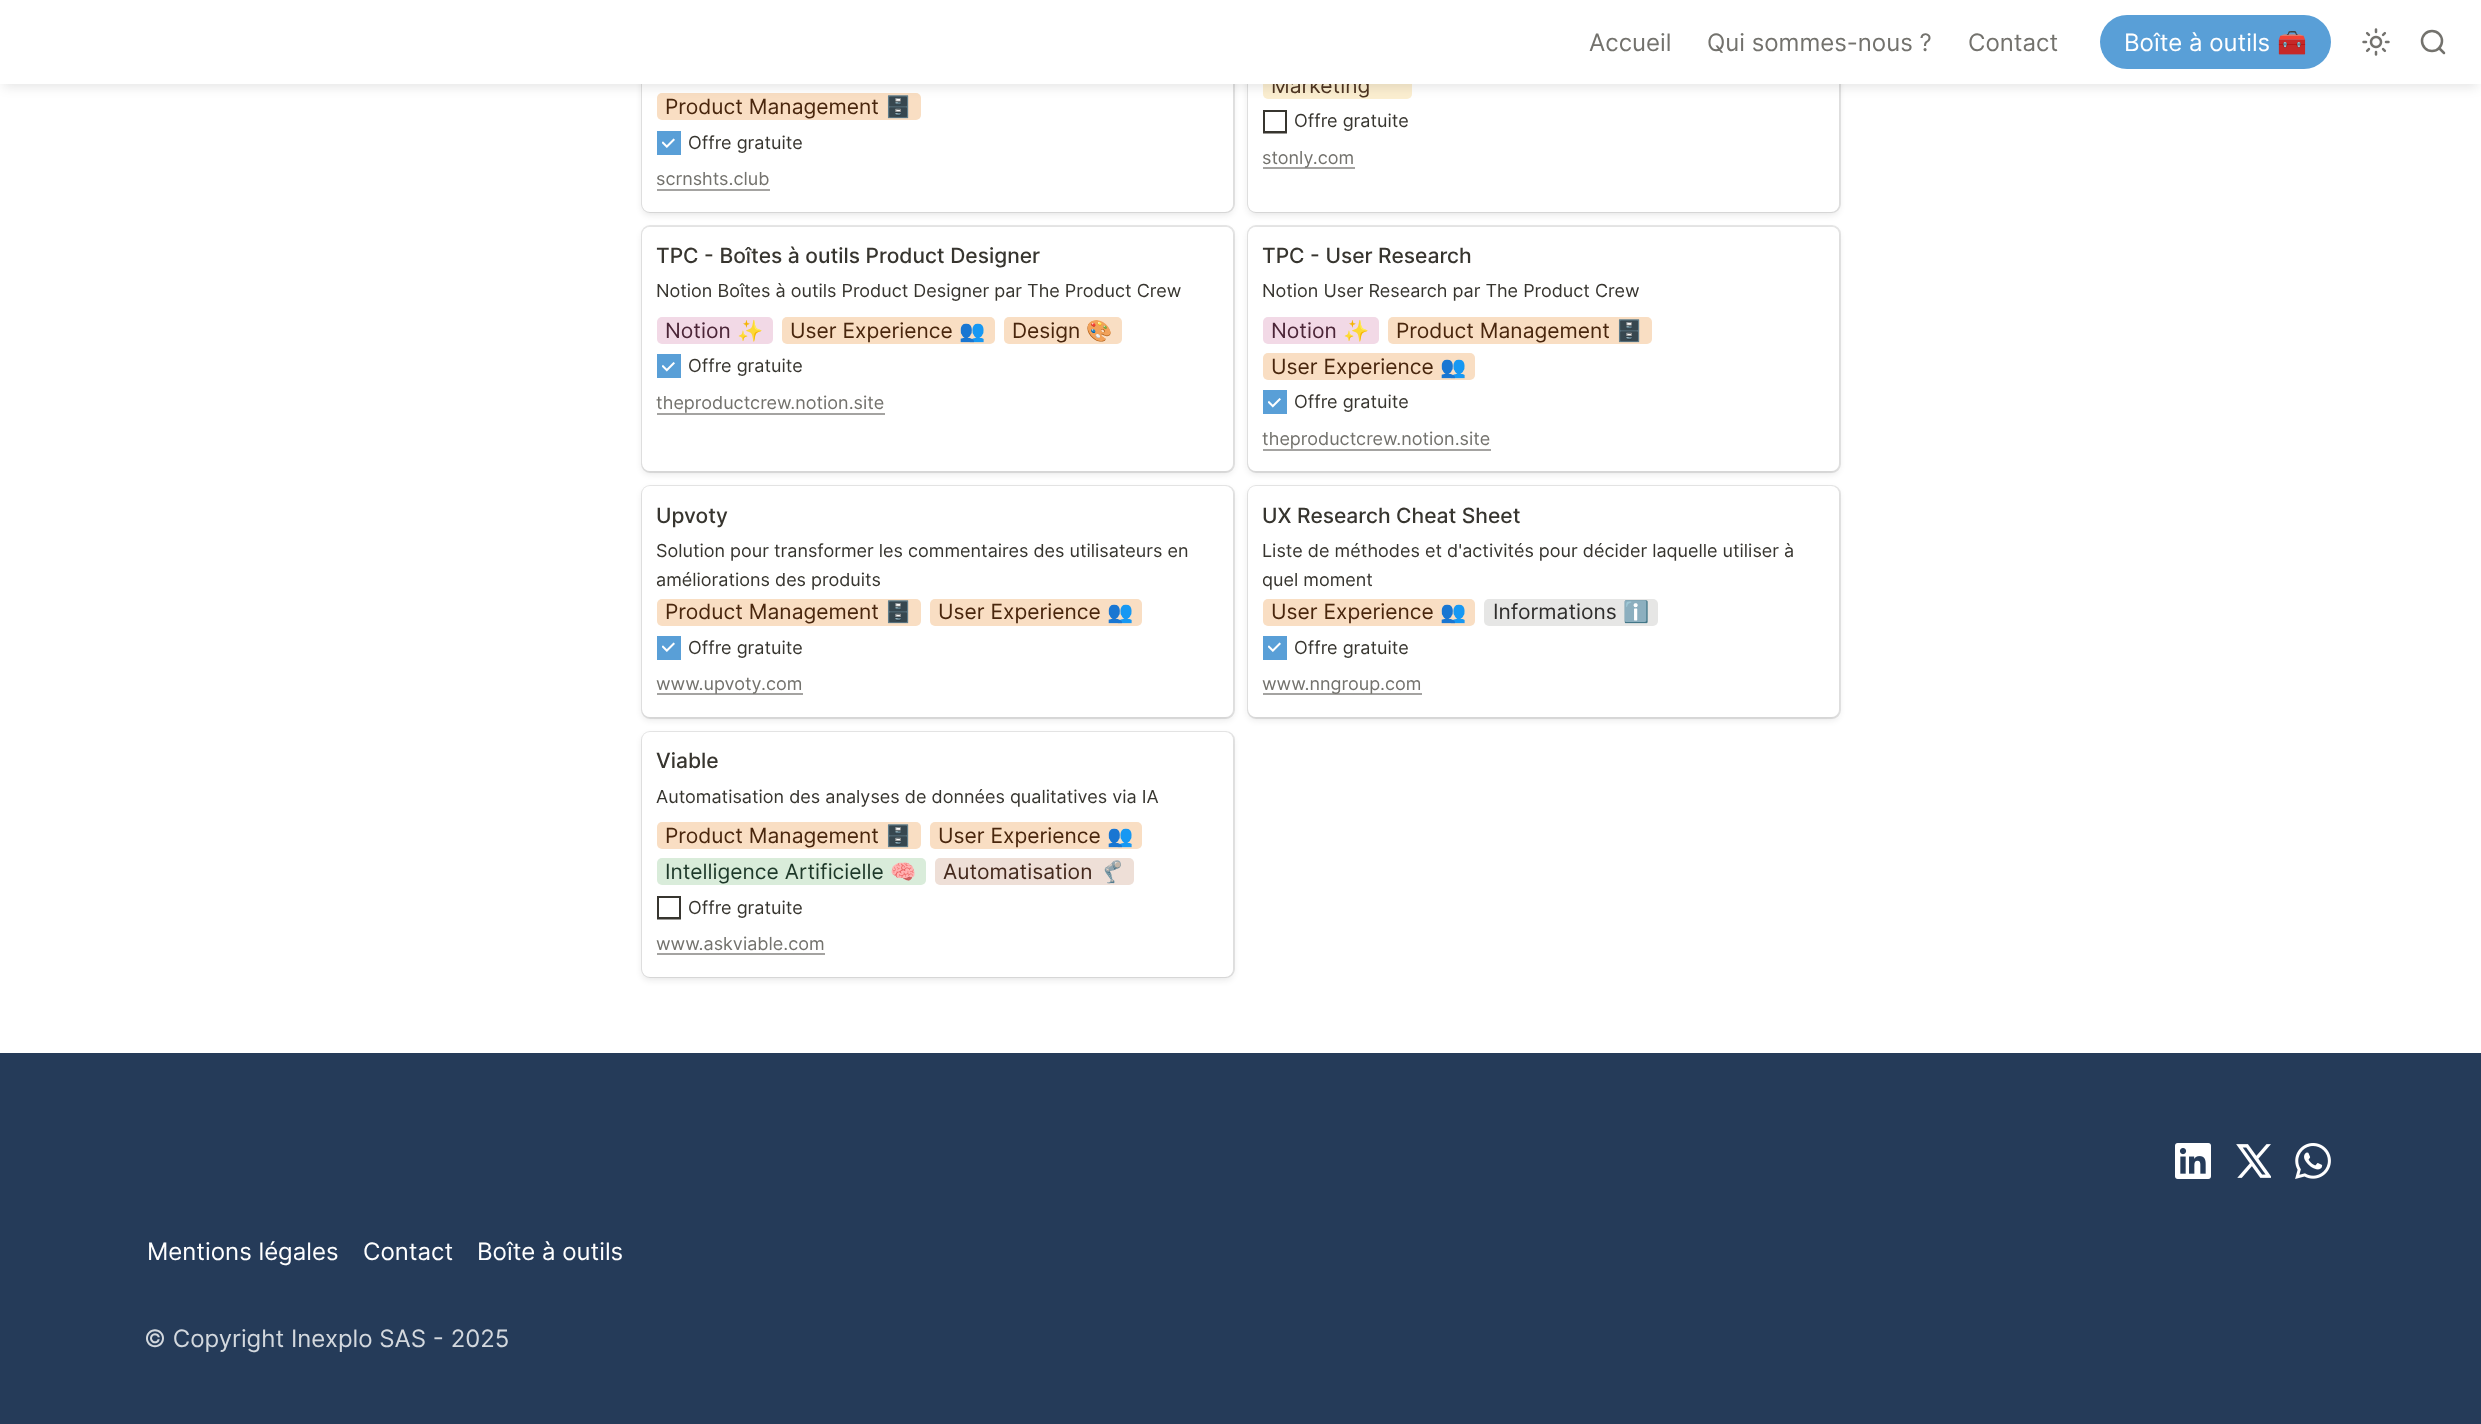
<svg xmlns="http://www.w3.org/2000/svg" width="2481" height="1424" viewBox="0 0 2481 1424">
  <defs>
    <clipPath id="clip1"><path d="M1263 110h24v24H1263z"/></clipPath>
    <clipPath id="clip2"><path d="M657 896h24v24H657z"/></clipPath>
  </defs>
  <rect width="100%" height="100%" fill="#fff"/>
  <rect x="642" y="-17" width="591" height="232" rx="8" fill="#0f0f0f1a" filter="blur(3px)"/>
  <rect x="642" y="-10" width="592" height="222" rx="8" fill="none" stroke="#0f0f0f1a" stroke-width="2"/>
  <rect x="642" y="-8" width="591" height="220" rx="8" fill="#fff"/>
  <rect x="657" y="93" width="264" height="27" rx="5" fill="#f9dec3"/>
  <rect x="1248" y="-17" width="591" height="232" rx="8" fill="#0f0f0f1a" filter="blur(3px)"/>
  <rect x="1248" y="-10" width="592" height="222" rx="8" fill="none" stroke="#0f0f0f1a" stroke-width="2"/>
  <rect x="1248" y="-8" width="591" height="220" rx="8" fill="#fff"/>
  <rect x="1263" y="72" width="149" height="27" rx="5" fill="#fbeed0"/>
  <path d="M3 9h2475v78H3z" fill="#0000001a" filter="blur(6px)"/>
  <path d="M657 131h24v24H657z" fill="#599fd7"/>
  <image x="662" y="138" width="13" height="10" href="img/2.png"/>
  <path d="M657 189h113v2H657z" fill="#a4a3a1"/>
  <g clip-path="url(#clip1)">
    <path d="M1265 112V131H1285V112ZM1263 109.5H1287V133.5H1263Z" fill="#37352f"/>
  </g>
  <path d="M1263 167h92v2H1263z" fill="#a4a3a1"/>
  <rect x="642" y="230" width="591" height="244" rx="8" fill="#0f0f0f1a" filter="blur(3px)"/>
  <rect x="642" y="226" width="592" height="246" rx="8" fill="none" stroke="#0f0f0f1a" stroke-width="2"/>
  <rect x="642" y="227" width="591" height="244" rx="8" fill="#fff"/>
  <rect x="657" y="317" width="116" height="27" rx="5" fill="#f2d9e6"/>
  <rect x="782" y="317" width="213" height="27" rx="5" fill="#f9dec3"/>
  <rect x="1004" y="317" width="118" height="27" rx="5" fill="#f9dec3"/>
  <path d="M657 354h24v24H657z" fill="#599fd7"/>
  <image x="662" y="362" width="13" height="10" href="img/3.png"/>
  <path d="M657 413h228v2H657z" fill="#a4a3a1"/>
  <rect x="1248" y="230" width="591" height="244" rx="8" fill="#0f0f0f1a" filter="blur(3px)"/>
  <rect x="1248" y="226" width="592" height="246" rx="8" fill="none" stroke="#0f0f0f1a" stroke-width="2"/>
  <rect x="1248" y="227" width="591" height="244" rx="8" fill="#fff"/>
  <rect x="1263" y="317" width="116" height="27" rx="5" fill="#f2d9e6"/>
  <rect x="1388" y="317" width="264" height="27" rx="5" fill="#f9dec3"/>
  <rect x="1263" y="353" width="212" height="27" rx="5" fill="#f9dec3"/>
  <path d="M1263 390h24v24H1263z" fill="#599fd7"/>
  <image x="1268" y="398" width="13" height="10" href="img/3.png"/>
  <path d="M1263 449h228v2H1263z" fill="#a4a3a1"/>
  <rect x="642" y="489" width="591" height="231" rx="8" fill="#0f0f0f1a" filter="blur(3px)"/>
  <rect x="642" y="486" width="592" height="232" rx="8" fill="none" stroke="#0f0f0f1a" stroke-width="2"/>
  <rect x="642" y="486" width="591" height="231" rx="8" fill="#fff"/>
  <rect x="657" y="599" width="264" height="27" rx="5" fill="#f9dec3"/>
  <rect x="930" y="599" width="212" height="27" rx="5" fill="#f9dec3"/>
  <path d="M657 636h24v24H657z" fill="#599fd7"/>
  <image x="662" y="642" width="13" height="10" href="img/2.png"/>
  <path d="M657 693h146v2H657z" fill="#a4a3a1"/>
  <rect x="1248" y="489" width="591" height="231" rx="8" fill="#0f0f0f1a" filter="blur(3px)"/>
  <rect x="1248" y="486" width="592" height="232" rx="8" fill="none" stroke="#0f0f0f1a" stroke-width="2"/>
  <rect x="1248" y="486" width="591" height="231" rx="8" fill="#fff"/>
  <rect x="1263" y="599" width="212" height="27" rx="5" fill="#f9dec3"/>
  <rect x="1484" y="599" width="174" height="27" rx="5" fill="#e6e6e5"/>
  <path d="M1263 636h24v24H1263z" fill="#599fd7"/>
  <image x="1268" y="642" width="13" height="10" href="img/2.png"/>
  <path d="M1263 693h159v2H1263z" fill="#a4a3a1"/>
  <rect x="642" y="735" width="591" height="245" rx="8" fill="#0f0f0f1a" filter="blur(3px)"/>
  <rect x="642" y="732" width="592" height="245" rx="8" fill="none" stroke="#0f0f0f1a" stroke-width="2"/>
  <rect x="642" y="732" width="591" height="245" rx="8" fill="#fff"/>
  <rect x="657" y="822" width="264" height="27" rx="5" fill="#f9dec3"/>
  <rect x="930" y="822" width="212" height="27" rx="5" fill="#f9dec3"/>
  <rect x="657" y="858" width="269" height="27" rx="5" fill="#d9ecda"/>
  <rect x="935" y="858" width="199" height="27" rx="5" fill="#eedfd7"/>
  <g clip-path="url(#clip2)">
    <path d="M659 898V917H679V898ZM657 895.5H681V919.5H657Z" fill="#37352f"/>
  </g>
  <path d="M657 953h168v2H657z" fill="#a4a3a1"/>
  <path d="M0 1053h2481v371H0z" fill="#253b59"/>
  <image x="2175" y="1143" width="36" height="36" href="img/4.png"/>
  <image x="2236" y="1144" width="35" height="34" href="img/5.png"/>
  <image x="2295" y="1143" width="36" height="36" href="img/6.png"/>
  <text x="665" y="114" font-family="Inter" font-size="21" fill="#49260d">Product Management</text>
  <text x="885" y="114" font-family="Noto Color Emoji" font-size="21" fill="#49260d">🗄️</text>
  <text x="688" y="149" font-family="Inter" font-size="18" fill="#37352f">Offre gratuite</text>
  <text x="656" y="185" font-family="Inter" font-size="18" fill="#73726d">scrnshts.club</text>
  <text x="1271" y="93" font-family="Inter" font-size="21" fill="#4b3320">Marketing</text>
  <path d="M0 0h2481v84H0z" fill="#fff"/>
  <circle cx="2432" cy="41" r="10" fill="none" stroke="#73726d" stroke-width="2.5"/>
  <path d="M2444 53L2439 48" fill="none" stroke="#73726d" stroke-width="2.5" stroke-linecap="round" stroke-linejoin="round"/>
  <image x="2362" y="28" width="28" height="28" href="img/1.png"/>
  <rect x="2100" y="15" width="231" height="54" rx="27" fill="#599fd7"/>
  <text x="2277" y="51" font-family="Noto Color Emoji" font-size="24" fill="#fff">🧰</text>
  <text x="2124" y="51" font-family="Inter" font-size="24" fill="#fff">Boîte à outils</text>
  <g font-family="Inter" font-size="24" fill="#73726d">
    <text x="1968" y="51">Contact</text>
    <text x="1707" y="51">Qui sommes-nous ?</text>
    <text x="1589" y="51">Accueil</text>
  </g>
  <text x="1294" y="127" font-family="Inter" font-size="18" fill="#37352f">Offre gratuite</text>
  <text x="1262" y="164" font-family="Inter" font-size="18" fill="#73726d">stonly.com</text>
  <text x="656" y="263" font-family="Inter" font-size="21" font-weight="500" fill="#37352f">TPC - Boîtes à outils Product Designer</text>
  <text x="656" y="297" font-family="Inter" font-size="18" fill="#37352f">Notion Boîtes à outils Product Designer par The Product Crew</text>
  <text x="665" y="338" font-family="Inter" font-size="21" fill="#4b2537">Notion</text>
  <text x="737" y="338" font-family="Noto Color Emoji" font-size="21" fill="#4b2537">✨</text>
  <text x="790" y="338" font-family="Inter" font-size="21" fill="#49260d">User Experience</text>
  <text x="959" y="338" font-family="Noto Color Emoji" font-size="21" fill="#49260d">👥</text>
  <text x="1012" y="338" font-family="Inter" font-size="21" fill="#49260d">Design</text>
  <text x="1086" y="338" font-family="Noto Color Emoji" font-size="21" fill="#49260d">🎨</text>
  <text x="688" y="372" font-family="Inter" font-size="18" fill="#37352f">Offre gratuite</text>
  <text x="656" y="409" font-family="Inter" font-size="18" fill="#73726d">theproductcrew.notion.site</text>
  <text x="1262" y="263" font-family="Inter" font-size="21" font-weight="500" fill="#37352f">TPC - User Research</text>
  <text x="1262" y="297" font-family="Inter" font-size="18" fill="#37352f">Notion User Research par The Product Crew</text>
  <text x="1271" y="338" font-family="Inter" font-size="21" fill="#4b2537">Notion</text>
  <text x="1343" y="338" font-family="Noto Color Emoji" font-size="21" fill="#4b2537">✨</text>
  <text x="1396" y="338" font-family="Inter" font-size="21" fill="#49260d">Product Management</text>
  <text x="1616" y="338" font-family="Noto Color Emoji" font-size="21" fill="#49260d">🗄️</text>
  <text x="1271" y="374" font-family="Inter" font-size="21" fill="#49260d">User Experience</text>
  <text x="1440" y="374" font-family="Noto Color Emoji" font-size="21" fill="#49260d">👥</text>
  <text x="1294" y="408" font-family="Inter" font-size="18" fill="#37352f">Offre gratuite</text>
  <text x="1262" y="445" font-family="Inter" font-size="18" fill="#73726d">theproductcrew.notion.site</text>
  <text x="656" y="523" font-family="Inter" font-size="21" font-weight="500" fill="#37352f">Upvoty</text>
  <g font-family="Inter" font-size="18" fill="#37352f">
    <text x="656" y="557">Solution pour transformer les commentaires des utilisateurs en</text>
    <text x="656" y="586">améliorations des produits</text>
  </g>
  <text x="665" y="619" font-family="Inter" font-size="21" fill="#49260d">Product Management</text>
  <text x="885" y="619" font-family="Noto Color Emoji" font-size="21" fill="#49260d">🗄️</text>
  <text x="938" y="619" font-family="Inter" font-size="21" fill="#49260d">User Experience</text>
  <text x="1107" y="619" font-family="Noto Color Emoji" font-size="21" fill="#49260d">👥</text>
  <text x="688" y="654" font-family="Inter" font-size="18" fill="#37352f">Offre gratuite</text>
  <text x="656" y="690" font-family="Inter" font-size="18" fill="#73726d">www.upvoty.com</text>
  <text x="1262" y="523" font-family="Inter" font-size="21" font-weight="500" fill="#37352f">UX Research Cheat Sheet</text>
  <g font-family="Inter" font-size="18" fill="#37352f">
    <text x="1262" y="557">Liste de méthodes et d'activités pour décider laquelle utiliser à</text>
    <text x="1262" y="586">quel moment</text>
  </g>
  <text x="1271" y="619" font-family="Inter" font-size="21" fill="#49260d">User Experience</text>
  <text x="1440" y="619" font-family="Noto Color Emoji" font-size="21" fill="#49260d">👥</text>
  <text x="1493" y="619" font-family="Inter" font-size="21" fill="#2f2e2d">Informations</text>
  <text x="1623" y="619" font-family="Noto Color Emoji" font-size="21" fill="#2f2e2d">ℹ️</text>
  <text x="1294" y="654" font-family="Inter" font-size="18" fill="#37352f">Offre gratuite</text>
  <text x="1262" y="690" font-family="Inter" font-size="18" fill="#73726d">www.nngroup.com</text>
  <text x="656" y="768" font-family="Inter" font-size="21" font-weight="500" fill="#37352f">Viable</text>
  <text x="656" y="803" font-family="Inter" font-size="18" fill="#37352f">Automatisation des analyses de données qualitatives via IA</text>
  <text x="665" y="843" font-family="Inter" font-size="21" fill="#49260d">Product Management</text>
  <text x="885" y="843" font-family="Noto Color Emoji" font-size="21" fill="#49260d">🗄️</text>
  <text x="938" y="843" font-family="Inter" font-size="21" fill="#49260d">User Experience</text>
  <text x="1107" y="843" font-family="Noto Color Emoji" font-size="21" fill="#49260d">👥</text>
  <text x="665" y="879" font-family="Inter" font-size="21" fill="#1e392a">Intelligence Artificielle</text>
  <text x="890" y="879" font-family="Noto Color Emoji" font-size="21" fill="#1e392a">🧠</text>
  <text x="943" y="879" font-family="Inter" font-size="21" fill="#44291d">Automatisation</text>
  <text x="1099" y="879" font-family="Noto Color Emoji" font-size="21" fill="#44291d">🦿</text>
  <text x="688" y="914" font-family="Inter" font-size="18" fill="#37352f">Offre gratuite</text>
  <text x="656" y="950" font-family="Inter" font-size="18" fill="#73726d">www.askviable.com</text>
  <g font-family="Inter" font-size="24" fill="#fff">
    <text x="147" y="1260">Mentions légales</text>
    <text x="363" y="1260">Contact</text>
    <text x="477" y="1260">Boîte à outils</text>
  </g>
  <text x="144" y="1347" font-family="Inter" font-size="24" fill="#d3d8de">© Copyright Inexplo SAS - 2025</text>
</svg>
